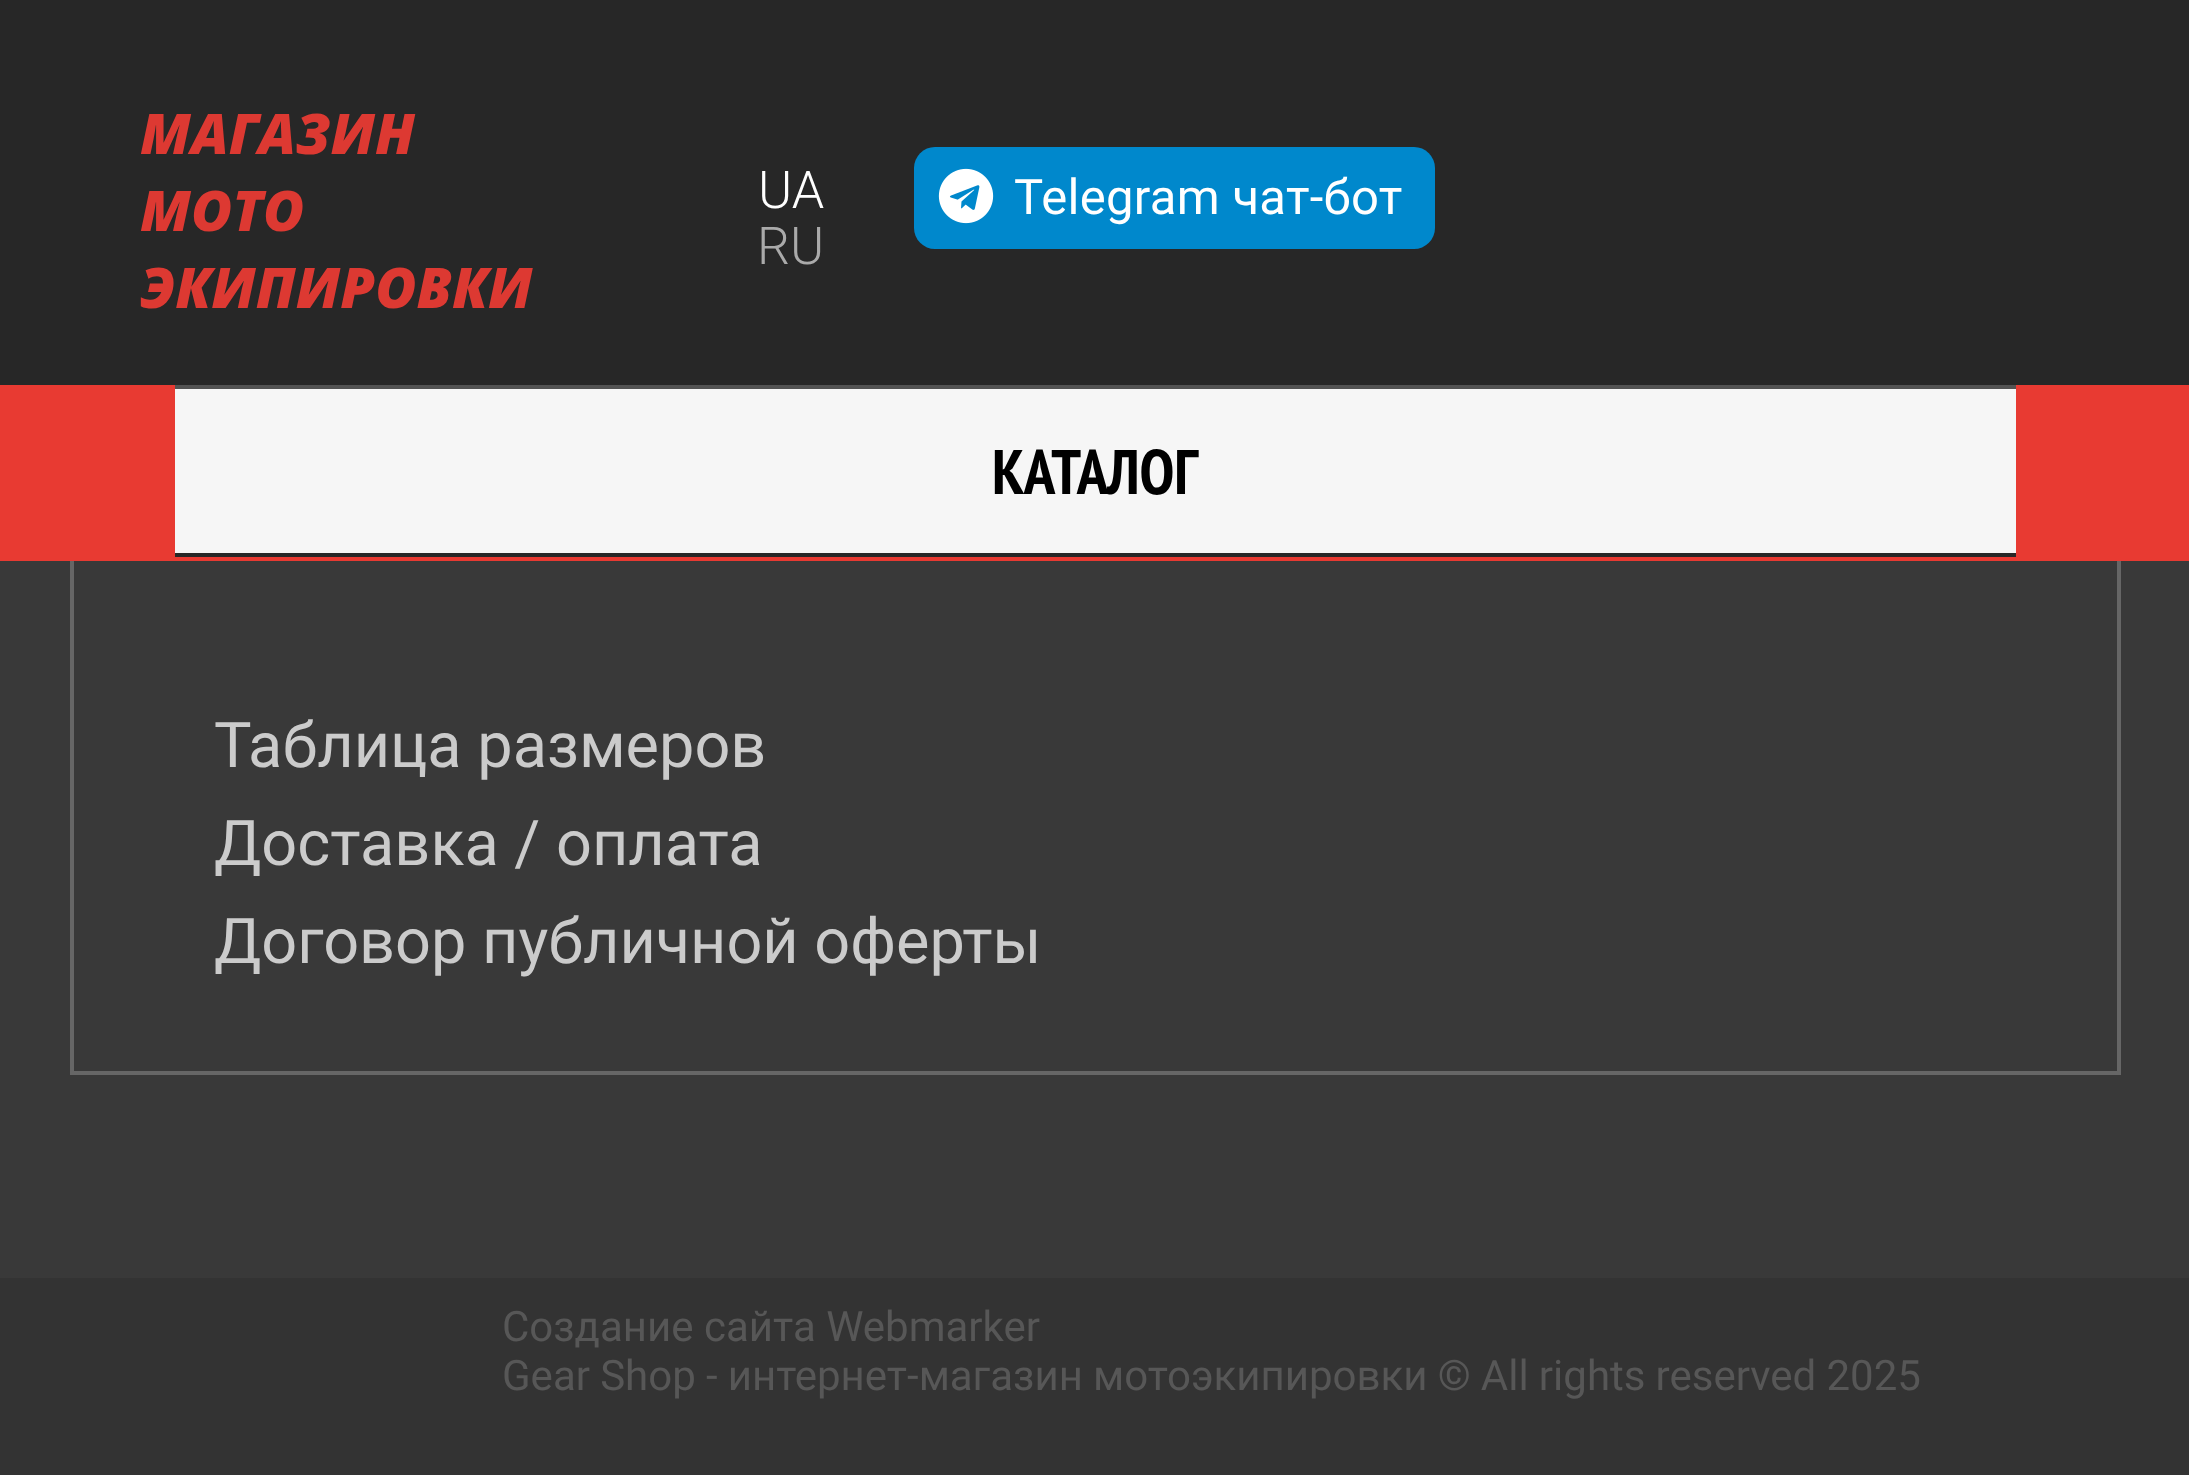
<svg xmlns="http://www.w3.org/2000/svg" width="2189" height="1475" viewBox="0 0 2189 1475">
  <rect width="100%" height="100%" fill="#333"/>
  <path d="M0 0h2189v385H0z" fill="#272727"/>
  <rect x="914" y="147" width="521" height="102" rx="21" fill="#08c"/>
  <image x="938" y="168" width="56" height="56" href="img/1.png"/>
  <path d="M0 561h2189v717H0z" fill="#393939"/>
  <path d="M72 426h2047v647H72z" fill="none" stroke="#666" stroke-width="4"/>
  <path d="M175 553h1841v4H175z" fill="#272727"/>
  <path d="M0 557h2189v4H0z" fill="#e83a32"/>
  <path d="M0 385h175v172H0z" fill="#e83a32"/>
  <path d="M175 389h1841v164H175z" fill="#f6f6f6"/>
  <path d="M175 385h1841v4H175z" fill="#535353"/>
  <path d="M2016 385h173v172H2016z" fill="#e83a32"/>
  <g font-family="Open Sans" font-size="56" font-weight="800" font-style="italic" fill="#dd3932">
    <text x="140" y="154">МАГАЗИН</text>
    <text x="140" y="231">МОТО</text>
    <text x="140" y="308">ЭКИПИРОВКИ</text>
  </g>
  <text x="758" y="208" font-family="Roboto" font-size="52" font-weight="300" fill="#fff">UA</text>
  <text x="757" y="264" font-family="Roboto" font-size="52" font-weight="300" fill="#aaa">RU</text>
  <text x="1014" y="214" font-family="Roboto" font-size="49" letter-spacing="0.3" fill="#fff">Telegram чат-бот</text>
  <text x="992" y="494" font-family="PT Sans Narrow" font-size="63" font-weight="bold" fill="#000">КАТАЛОГ</text>
  <g font-family="Roboto" font-size="63" fill="#cbcbcb">
    <text x="214" y="767">Таблица размеров</text>
    <text x="214" y="865">Доставка / оплата</text>
    <text x="214" y="963">Договор публичной оферты</text>
  </g>
  <g font-family="Roboto" font-size="42" fill="#575757">
    <text x="502" y="1341">Создание сайта Webmarker</text>
    <text x="502" y="1390" word-spacing="-0.25">Gear Shop - интернет-магазин мотоэкипировки © All rights reserved 2025</text>
  </g>
</svg>
